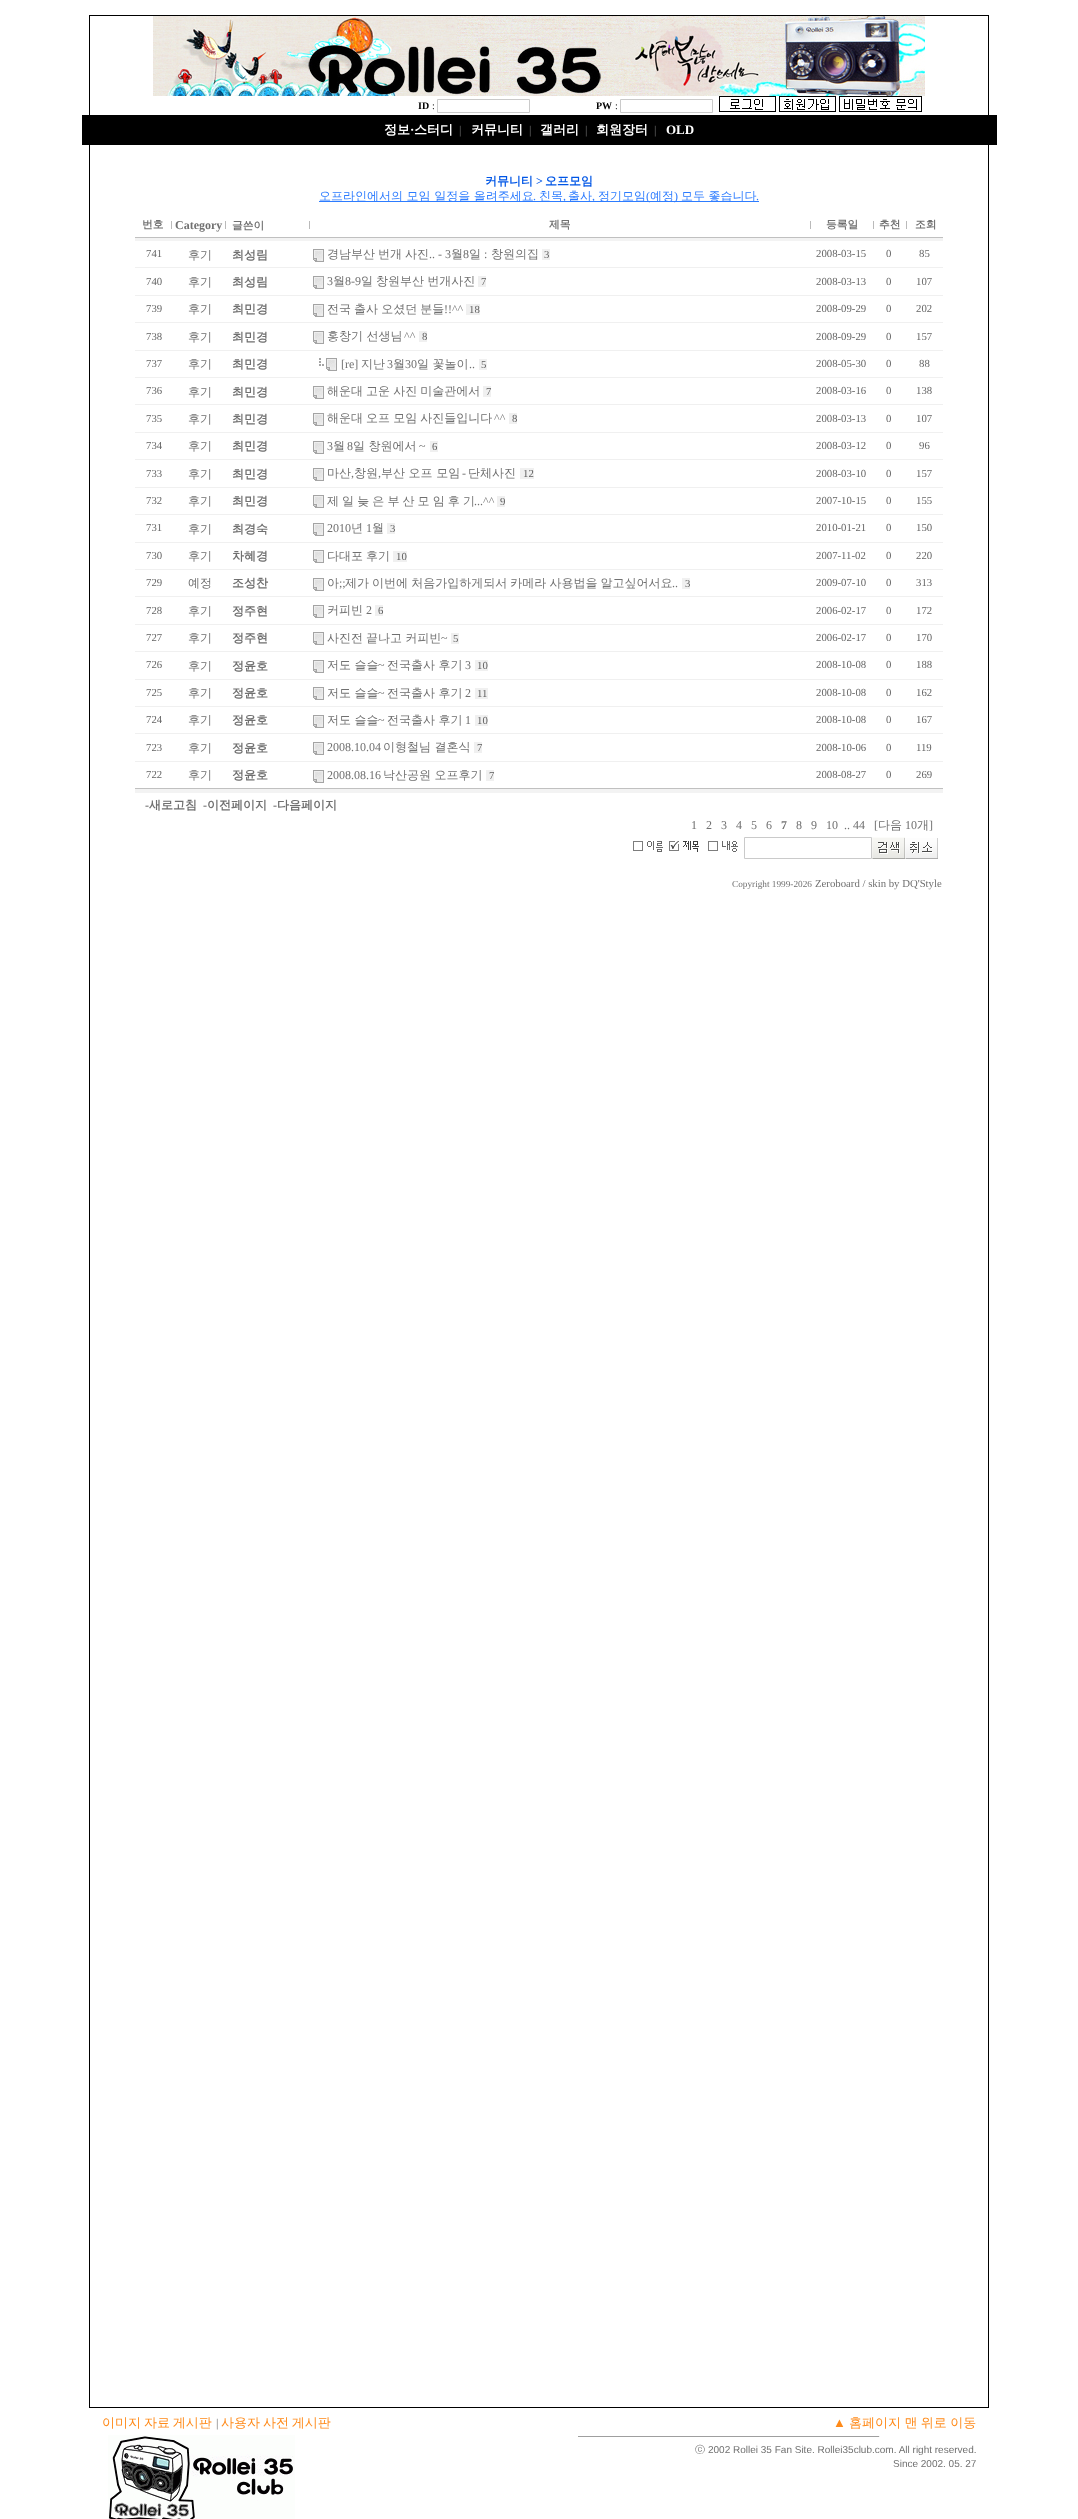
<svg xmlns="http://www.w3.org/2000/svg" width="1078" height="2519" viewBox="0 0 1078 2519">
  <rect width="100%" height="100%" fill="#fff"/>
  <path d="M89 15h900v1H89z" fill="#000"/>
  <path d="M988 15h1v100H988z" fill="#000"/>
  <path d="M89 15h1v100H89z" fill="#000"/>
  <image x="153" y="16" width="772" height="80" href="img/1.png"/>
  <path d="M437.5 99.5h92v13H437.5z" fill="none" stroke="#cacaca"/>
  <path d="M620.5 99.5h92v13H620.5z" fill="none" stroke="#cacaca"/>
  <image x="719" y="96" width="57" height="16" href="img/2.png"/>
  <image x="779" y="96" width="57" height="16" href="img/3.png"/>
  <image x="839" y="96" width="83" height="16" href="img/4.png"/>
  <path d="M82 115h915v30H82z" fill="#000"/>
  <path d="M988 145h1v2263H988z" fill="#000"/>
  <path d="M89 2407h900v1H89z" fill="#000"/>
  <path d="M89 145h1v2263H89z" fill="#000"/>
  <path d="M319 201h440v1H319z" fill="#2d7cff"/>
  <path d="M171 221h1v8H171z" fill="#bababa"/>
  <path d="M225 221h1v8H225z" fill="#bababa"/>
  <path d="M309 221h1v8H309z" fill="#bababa"/>
  <path d="M810 221h1v8H810z" fill="#bababa"/>
  <path d="M873 221h1v8H873z" fill="#bababa"/>
  <path d="M906 221h1v8H906z" fill="#bababa"/>
  <path d="M135 237h808v1H135z" fill="#c0c0c0"/>
  <path d="M135 238h808v3H135z" fill="#f3f3f3"/>
  <image x="313" y="249" width="11" height="13" href="img/5.png"/>
  <path d="M542 249h8v11H542z" fill="#f0f0f0"/>
  <path d="M135 267h808v1H135z" fill="#f0f0f0"/>
  <image x="313" y="276" width="11" height="13" href="img/6.png"/>
  <path d="M478 276h8v11H478z" fill="#f0f0f0"/>
  <path d="M135 295h808v1H135z" fill="#f0f0f0"/>
  <image x="313" y="304" width="11" height="13" href="img/5.png"/>
  <path d="M466 304h14v11H466z" fill="#f0f0f0"/>
  <path d="M135 322h808v1H135z" fill="#f0f0f0"/>
  <image x="313" y="331" width="11" height="13" href="img/6.png"/>
  <path d="M419 331h8v11H419z" fill="#f0f0f0"/>
  <path d="M135 350h808v1H135z" fill="#f0f0f0"/>
  <image x="319" y="358" width="18" height="13" href="img/7.png"/>
  <path d="M479 359h8v11H479z" fill="#f0f0f0"/>
  <path d="M135 377h808v1H135z" fill="#f0f0f0"/>
  <image x="313" y="386" width="11" height="13" href="img/6.png"/>
  <path d="M483 386h8v11H483z" fill="#f0f0f0"/>
  <path d="M135 404h808v1H135z" fill="#f0f0f0"/>
  <image x="313" y="413" width="11" height="13" href="img/5.png"/>
  <path d="M509 413h8v11H509z" fill="#f0f0f0"/>
  <path d="M135 432h808v1H135z" fill="#f0f0f0"/>
  <image x="313" y="441" width="11" height="13" href="img/6.png"/>
  <path d="M430 441h8v11H430z" fill="#f0f0f0"/>
  <path d="M135 459h808v1H135z" fill="#f0f0f0"/>
  <image x="313" y="468" width="11" height="13" href="img/5.png"/>
  <path d="M520 468h14v11H520z" fill="#f0f0f0"/>
  <path d="M135 487h808v1H135z" fill="#f0f0f0"/>
  <image x="313" y="495" width="11" height="13" href="img/6.png"/>
  <path d="M497 496h8v11H497z" fill="#f0f0f0"/>
  <path d="M135 514h808v1H135z" fill="#f0f0f0"/>
  <image x="313" y="523" width="11" height="13" href="img/5.png"/>
  <path d="M387 523h8v11H387z" fill="#f0f0f0"/>
  <path d="M135 542h808v1H135z" fill="#f0f0f0"/>
  <image x="313" y="550" width="11" height="13" href="img/6.png"/>
  <path d="M393 551h14v11H393z" fill="#f0f0f0"/>
  <path d="M135 569h808v1H135z" fill="#f0f0f0"/>
  <image x="313" y="578" width="11" height="13" href="img/5.png"/>
  <path d="M682 578h8v11H682z" fill="#f0f0f0"/>
  <path d="M135 596h808v1H135z" fill="#f0f0f0"/>
  <image x="313" y="605" width="11" height="13" href="img/6.png"/>
  <path d="M375 605h8v11H375z" fill="#f0f0f0"/>
  <path d="M135 624h808v1H135z" fill="#f0f0f0"/>
  <image x="313" y="632" width="11" height="13" href="img/5.png"/>
  <path d="M451 633h8v11H451z" fill="#f0f0f0"/>
  <path d="M135 651h808v1H135z" fill="#f0f0f0"/>
  <image x="313" y="660" width="11" height="13" href="img/6.png"/>
  <path d="M475 660h13v11H475z" fill="#f0f0f0"/>
  <path d="M135 679h808v1H135z" fill="#f0f0f0"/>
  <image x="313" y="687" width="11" height="13" href="img/5.png"/>
  <path d="M475 688h13v11H475z" fill="#f0f0f0"/>
  <path d="M135 706h808v1H135z" fill="#f0f0f0"/>
  <image x="313" y="715" width="11" height="13" href="img/6.png"/>
  <path d="M475 715h13v11H475z" fill="#f0f0f0"/>
  <path d="M135 733h808v1H135z" fill="#f0f0f0"/>
  <image x="313" y="742" width="11" height="13" href="img/5.png"/>
  <path d="M474 742h8v11H474z" fill="#f0f0f0"/>
  <path d="M135 761h808v1H135z" fill="#f0f0f0"/>
  <image x="313" y="770" width="11" height="13" href="img/6.png"/>
  <path d="M486 770h8v11H486z" fill="#f0f0f0"/>
  <path d="M135 788h808v1H135z" fill="#c0c0c0"/>
  <path d="M135 789h808v4H135z" fill="#f3f3f3"/>
  <image x="633" y="841" width="30" height="11" href="img/8.png"/>
  <image x="669" y="841" width="30" height="11" href="img/9.png"/>
  <image x="708" y="841" width="30" height="11" href="img/10.png"/>
  <path d="M744.5 837.5h127v21H744.5z" fill="none" stroke="#cacaca"/>
  <image x="872" y="837" width="33" height="22" href="img/11.png"/>
  <image x="905" y="838" width="33" height="21" href="img/12.png"/>
  <image x="108" y="2435" width="187" height="84" href="img/13.png"/>
  <path d="M578 2436h302v1H578z" fill="#9f9f9f"/>
  <path d="M879 2436h1v1H879z" fill="#eee"/>
  <text x="418" y="109" font-family="Liberation Serif" font-size="10" font-weight="bold" fill="#000">ID</text>
  <text x="432" y="109" font-family="Liberation Serif" font-size="10" fill="#000">:</text>
  <text x="596" y="109" font-family="Liberation Serif" font-size="10" font-weight="bold" fill="#000">PW</text>
  <text x="615" y="109" font-family="Liberation Serif" font-size="10" fill="#000">:</text>
  <text x="384" y="134" font-family="WenQuanYi Zen Hei" font-size="13" font-weight="bold" fill="#fff">정보</text>
  <text x="410" y="134" font-family="Liberation Serif" font-size="13" font-weight="bold" fill="#fff">·</text>
  <text x="414" y="134" font-family="WenQuanYi Zen Hei" font-size="13" font-weight="bold" fill="#fff">스터디</text>
  <text x="459" y="134" font-family="Liberation Serif" font-size="12" fill="#707070">|</text>
  <text x="471" y="134" font-family="WenQuanYi Zen Hei" font-size="13" font-weight="bold" fill="#fff">커뮤니티</text>
  <text x="529" y="134" font-family="Liberation Serif" font-size="12" fill="#707070">|</text>
  <text x="540" y="134" font-family="WenQuanYi Zen Hei" font-size="13" font-weight="bold" fill="#fff">갤러리</text>
  <text x="585" y="134" font-family="Liberation Serif" font-size="12" fill="#707070">|</text>
  <text x="596" y="134" font-family="WenQuanYi Zen Hei" font-size="13" font-weight="bold" fill="#fff">회원장터</text>
  <text x="654" y="134" font-family="Liberation Serif" font-size="12" fill="#707070">|</text>
  <text x="666" y="134" font-family="Liberation Serif" font-size="13" font-weight="bold" fill="#fff">OLD</text>
  <text x="485" y="185" font-family="WenQuanYi Zen Hei" font-size="12" font-weight="bold" fill="#0056e6">커뮤니티</text>
  <text x="536" y="185" font-family="Liberation Serif" font-size="12" font-weight="bold" fill="#0056e6">&gt;</text>
  <text x="545" y="185" font-family="WenQuanYi Zen Hei" font-size="12" font-weight="bold" fill="#0056e6">오프모임</text>
  <text x="319" y="200" font-family="WenQuanYi Zen Hei" font-size="12" font-weight="500" fill="#2d7cff">오프라인에서의 모임 일정을 올려주세요</text>
  <text x="533" y="200" font-family="Liberation Serif" font-size="12" fill="#2d7cff">.</text>
  <text x="539" y="200" font-family="WenQuanYi Zen Hei" font-size="12" font-weight="500" fill="#2d7cff">친목</text>
  <text x="563" y="200" font-family="Liberation Serif" font-size="12" fill="#2d7cff">,</text>
  <text x="568" y="200" font-family="WenQuanYi Zen Hei" font-size="12" font-weight="500" fill="#2d7cff">출사</text>
  <text x="592" y="200" font-family="Liberation Serif" font-size="12" fill="#2d7cff">,</text>
  <text x="598" y="200" font-family="WenQuanYi Zen Hei" font-size="12" font-weight="500" fill="#2d7cff">정기모임</text>
  <text x="646" y="200" font-family="Liberation Serif" font-size="12" fill="#2d7cff">(</text>
  <text x="650" y="200" font-family="WenQuanYi Zen Hei" font-size="12" font-weight="500" fill="#2d7cff">예정</text>
  <text x="674" y="200" font-family="Liberation Serif" font-size="12" fill="#2d7cff">)</text>
  <text x="681" y="200" font-family="WenQuanYi Zen Hei" font-size="12" font-weight="500" fill="#2d7cff">모두 좋습니다</text>
  <text x="756" y="200" font-family="Liberation Serif" font-size="12" fill="#2d7cff">.</text>
  <text x="142" y="228" font-family="WenQuanYi Zen Hei" font-size="10.75" font-weight="bold" fill="#707070">번호</text>
  <text x="175" y="229" font-family="Liberation Serif" font-size="12" font-weight="bold" fill="#707070">Category</text>
  <g font-family="WenQuanYi Zen Hei" font-size="10.75" font-weight="bold" fill="#707070">
    <text x="232" y="229">글쓴이</text>
    <text x="549" y="228">제목</text>
    <text x="826" y="228">등록일</text>
    <text x="879" y="228">추천</text>
    <text x="915" y="228">조회</text>
  </g>
  <text x="146" y="257" font-family="Liberation Serif" font-size="10.75" fill="#666">741</text>
  <text x="188" y="259" font-family="WenQuanYi Zen Hei" font-size="12" font-weight="500" fill="#707070">후기</text>
  <text x="232" y="259" font-family="WenQuanYi Zen Hei" font-size="12" font-weight="bold" fill="#707070">최성림</text>
  <g font-family="WenQuanYi Zen Hei" font-size="12" font-weight="500" fill="#707070">
    <text x="327" y="258">경남부산</text>
    <text x="378" y="258">번개</text>
    <text x="405" y="258">사진</text>
  </g>
  <text x="429" y="258" font-family="Liberation Serif" font-size="12" fill="#707070">.. - 3</text>
  <text x="451" y="258" font-family="WenQuanYi Zen Hei" font-size="12" font-weight="500" fill="#707070">월</text>
  <text x="463" y="258" font-family="Liberation Serif" font-size="12" fill="#707070">8</text>
  <text x="469" y="258" font-family="WenQuanYi Zen Hei" font-size="12" font-weight="500" fill="#707070">일</text>
  <text x="484" y="258" font-family="Liberation Serif" font-size="12" fill="#707070">:</text>
  <text x="491" y="258" font-family="WenQuanYi Zen Hei" font-size="12" font-weight="500" fill="#707070">창원의집</text>
  <text x="544" y="258" font-family="Liberation Serif" font-size="10.75" fill="#606060">3</text>
  <g font-family="Liberation Serif" font-size="10.75" fill="#666">
    <text x="816" y="257">2008-03-15</text>
    <text x="886" y="257">0</text>
    <text x="919" y="257">85</text>
    <text x="146" y="285">740</text>
  </g>
  <text x="188" y="286" font-family="WenQuanYi Zen Hei" font-size="12" font-weight="500" fill="#707070">후기</text>
  <text x="232" y="286" font-family="WenQuanYi Zen Hei" font-size="12" font-weight="bold" fill="#707070">최성림</text>
  <text x="327" y="285" font-family="Liberation Serif" font-size="12" fill="#707070">3</text>
  <text x="333" y="285" font-family="WenQuanYi Zen Hei" font-size="12" font-weight="500" fill="#707070">월</text>
  <text x="345" y="285" font-family="Liberation Serif" font-size="12" fill="#707070">8-9</text>
  <text x="361" y="285" word-spacing="-0.5" font-family="WenQuanYi Zen Hei" font-size="12" font-weight="500" fill="#707070">일 창원부산 번개사진</text>
  <text x="481" y="285" font-family="Liberation Serif" font-size="10.75" fill="#606060">7</text>
  <g font-family="Liberation Serif" font-size="10.75" fill="#666">
    <text x="816" y="285">2008-03-13</text>
    <text x="886" y="285">0</text>
    <text x="916" y="285">107</text>
    <text x="146" y="312">739</text>
  </g>
  <text x="188" y="313" font-family="WenQuanYi Zen Hei" font-size="12" font-weight="500" fill="#707070">후기</text>
  <text x="232" y="313" font-family="WenQuanYi Zen Hei" font-size="12" font-weight="bold" fill="#707070">최민경</text>
  <text x="327" y="313" word-spacing="-0.5" font-family="WenQuanYi Zen Hei" font-size="12" font-weight="500" fill="#707070">전국 출사 오셨던 분들</text>
  <text x="444" y="313" font-family="Liberation Serif" font-size="12" fill="#707070">!!^^</text>
  <text x="469" y="313" font-family="Liberation Serif" font-size="10.75" fill="#606060">18</text>
  <g font-family="Liberation Serif" font-size="10.75" fill="#666">
    <text x="816" y="312">2008-09-29</text>
    <text x="886" y="312">0</text>
    <text x="916" y="312">202</text>
    <text x="146" y="340">738</text>
  </g>
  <text x="188" y="341" font-family="WenQuanYi Zen Hei" font-size="12" font-weight="500" fill="#707070">후기</text>
  <text x="232" y="341" font-family="WenQuanYi Zen Hei" font-size="12" font-weight="bold" fill="#707070">최민경</text>
  <text x="327" y="340" font-family="WenQuanYi Zen Hei" font-size="12" font-weight="500" fill="#707070">홍창기 선생님</text>
  <text x="404" y="340" font-family="Liberation Serif" font-size="12" fill="#707070">^^</text>
  <text x="422" y="340" font-family="Liberation Serif" font-size="10.75" fill="#606060">8</text>
  <g font-family="Liberation Serif" font-size="10.75" fill="#666">
    <text x="816" y="340">2008-09-29</text>
    <text x="886" y="340">0</text>
    <text x="916" y="340">157</text>
    <text x="146" y="367">737</text>
  </g>
  <text x="188" y="368" font-family="WenQuanYi Zen Hei" font-size="12" font-weight="500" fill="#707070">후기</text>
  <text x="232" y="368" font-family="WenQuanYi Zen Hei" font-size="12" font-weight="bold" fill="#707070">최민경</text>
  <text x="341" y="368" font-family="Liberation Serif" font-size="12" fill="#707070">[re]</text>
  <text x="361" y="368" font-family="WenQuanYi Zen Hei" font-size="12" font-weight="500" fill="#707070">지난</text>
  <text x="387" y="368" font-family="Liberation Serif" font-size="12" fill="#707070">3</text>
  <text x="393" y="368" font-family="WenQuanYi Zen Hei" font-size="12" font-weight="500" fill="#707070">월</text>
  <text x="405" y="368" font-family="Liberation Serif" font-size="12" fill="#707070">30</text>
  <text x="417" y="368" font-family="WenQuanYi Zen Hei" font-size="12" font-weight="500" fill="#707070">일 꽃놀이</text>
  <text x="469" y="368" font-family="Liberation Serif" font-size="12" fill="#707070">..</text>
  <text x="481" y="368" font-family="Liberation Serif" font-size="10.75" fill="#606060">5</text>
  <g font-family="Liberation Serif" font-size="10.75" fill="#666">
    <text x="816" y="367">2008-05-30</text>
    <text x="886" y="367">0</text>
    <text x="919" y="367">88</text>
    <text x="146" y="394">736</text>
  </g>
  <text x="188" y="396" font-family="WenQuanYi Zen Hei" font-size="12" font-weight="500" fill="#707070">후기</text>
  <text x="232" y="396" font-family="WenQuanYi Zen Hei" font-size="12" font-weight="bold" fill="#707070">최민경</text>
  <text x="327" y="395" word-spacing="-0.5" font-family="WenQuanYi Zen Hei" font-size="12" font-weight="500" fill="#707070">해운대 고운 사진 미술관에서</text>
  <text x="486" y="395" font-family="Liberation Serif" font-size="10.75" fill="#606060">7</text>
  <g font-family="Liberation Serif" font-size="10.75" fill="#666">
    <text x="816" y="394">2008-03-16</text>
    <text x="886" y="394">0</text>
    <text x="916" y="394">138</text>
    <text x="146" y="422">735</text>
  </g>
  <text x="188" y="423" font-family="WenQuanYi Zen Hei" font-size="12" font-weight="500" fill="#707070">후기</text>
  <text x="232" y="423" font-family="WenQuanYi Zen Hei" font-size="12" font-weight="bold" fill="#707070">최민경</text>
  <text x="327" y="422" word-spacing="-0.5" font-family="WenQuanYi Zen Hei" font-size="12" font-weight="500" fill="#707070">해운대 오프 모임 사진들입니다</text>
  <text x="494" y="422" font-family="Liberation Serif" font-size="12" fill="#707070">^^</text>
  <text x="512" y="422" font-family="Liberation Serif" font-size="10.75" fill="#606060">8</text>
  <g font-family="Liberation Serif" font-size="10.75" fill="#666">
    <text x="816" y="422">2008-03-13</text>
    <text x="886" y="422">0</text>
    <text x="916" y="422">107</text>
    <text x="146" y="449">734</text>
  </g>
  <text x="188" y="450" font-family="WenQuanYi Zen Hei" font-size="12" font-weight="500" fill="#707070">후기</text>
  <text x="232" y="450" font-family="WenQuanYi Zen Hei" font-size="12" font-weight="bold" fill="#707070">최민경</text>
  <text x="327" y="450" font-family="Liberation Serif" font-size="12" fill="#707070">3</text>
  <text x="333" y="450" font-family="WenQuanYi Zen Hei" font-size="12" font-weight="500" fill="#707070">월</text>
  <text x="347" y="450" font-family="Liberation Serif" font-size="12" fill="#707070">8</text>
  <text x="353" y="450" font-family="WenQuanYi Zen Hei" font-size="12" font-weight="500" fill="#707070">일 창원에서</text>
  <text x="419" y="450" font-family="Liberation Serif" font-size="12" fill="#707070">~</text>
  <text x="432" y="450" font-family="Liberation Serif" font-size="10.75" fill="#606060">6</text>
  <g font-family="Liberation Serif" font-size="10.75" fill="#666">
    <text x="816" y="449">2008-03-12</text>
    <text x="886" y="449">0</text>
    <text x="919" y="449">96</text>
    <text x="146" y="477">733</text>
  </g>
  <text x="188" y="478" font-family="WenQuanYi Zen Hei" font-size="12" font-weight="500" fill="#707070">후기</text>
  <text x="232" y="478" font-family="WenQuanYi Zen Hei" font-size="12" font-weight="bold" fill="#707070">최민경</text>
  <g font-family="WenQuanYi Zen Hei" font-size="12" font-weight="500" fill="#707070">
    <text x="327" y="477">마산</text>
    <text x="354" y="477">창원</text>
    <text x="381" y="477">부산 오프 모임</text>
  </g>
  <text x="462" y="477" font-family="Liberation Serif" font-size="12" fill="#707070">-</text>
  <text x="468" y="477" font-family="WenQuanYi Zen Hei" font-size="12" font-weight="500" fill="#707070">단체사진</text>
  <text x="523" y="477" font-family="Liberation Serif" font-size="10.75" fill="#606060">12</text>
  <g font-family="Liberation Serif" font-size="12" fill="#707070">
    <text x="351" y="477">,</text>
    <text x="378" y="477">,</text>
  </g>
  <g font-family="Liberation Serif" font-size="10.75" fill="#666">
    <text x="816" y="477">2008-03-10</text>
    <text x="886" y="477">0</text>
    <text x="916" y="477">157</text>
    <text x="146" y="504">732</text>
  </g>
  <text x="188" y="505" font-family="WenQuanYi Zen Hei" font-size="12" font-weight="500" fill="#707070">후기</text>
  <text x="232" y="505" font-family="WenQuanYi Zen Hei" font-size="12" font-weight="bold" fill="#707070">최민경</text>
  <text x="327" y="505" word-spacing="-0.5" font-family="WenQuanYi Zen Hei" font-size="12" font-weight="500" fill="#707070">제 일 늦 은 부 산 모 임 후 기</text>
  <text x="474" y="505" font-family="Liberation Serif" font-size="12" fill="#707070">...^^</text>
  <text x="500" y="505" font-family="Liberation Serif" font-size="10.75" fill="#606060">9</text>
  <g font-family="Liberation Serif" font-size="10.75" fill="#666">
    <text x="816" y="504">2007-10-15</text>
    <text x="886" y="504">0</text>
    <text x="916" y="504">155</text>
    <text x="146" y="531">731</text>
  </g>
  <text x="188" y="533" font-family="WenQuanYi Zen Hei" font-size="12" font-weight="500" fill="#707070">후기</text>
  <text x="232" y="533" font-family="WenQuanYi Zen Hei" font-size="12" font-weight="bold" fill="#707070">최경숙</text>
  <text x="327" y="532" font-family="Liberation Serif" font-size="12" fill="#707070">2010</text>
  <text x="351" y="532" font-family="WenQuanYi Zen Hei" font-size="12" font-weight="500" fill="#707070">년</text>
  <text x="366" y="532" font-family="Liberation Serif" font-size="12" fill="#707070">1</text>
  <text x="372" y="532" font-family="WenQuanYi Zen Hei" font-size="12" font-weight="500" fill="#707070">월</text>
  <text x="390" y="532" font-family="Liberation Serif" font-size="10.75" fill="#606060">3</text>
  <g font-family="Liberation Serif" font-size="10.75" fill="#666">
    <text x="816" y="531">2010-01-21</text>
    <text x="886" y="531">0</text>
    <text x="916" y="531">150</text>
    <text x="146" y="559">730</text>
  </g>
  <text x="188" y="560" font-family="WenQuanYi Zen Hei" font-size="12" font-weight="500" fill="#707070">후기</text>
  <text x="232" y="560" font-family="WenQuanYi Zen Hei" font-size="12" font-weight="bold" fill="#707070">차혜경</text>
  <text x="327" y="560" word-spacing="-0.5" font-family="WenQuanYi Zen Hei" font-size="12" font-weight="500" fill="#707070">다대포 후기</text>
  <text x="396" y="560" font-family="Liberation Serif" font-size="10.75" fill="#606060">10</text>
  <g font-family="Liberation Serif" font-size="10.75" fill="#666">
    <text x="816" y="559">2007-11-02</text>
    <text x="886" y="559">0</text>
    <text x="916" y="559">220</text>
    <text x="146" y="586">729</text>
  </g>
  <text x="188" y="587" font-family="WenQuanYi Zen Hei" font-size="12" font-weight="500" fill="#707070">예정</text>
  <text x="232" y="587" font-family="WenQuanYi Zen Hei" font-size="12" font-weight="bold" fill="#707070">조성찬</text>
  <text x="327" y="587" font-family="WenQuanYi Zen Hei" font-size="12" font-weight="500" fill="#707070">아</text>
  <text x="339" y="587" font-family="Liberation Serif" font-size="12" fill="#707070">;;</text>
  <text x="345" y="587" word-spacing="-0.5" font-family="WenQuanYi Zen Hei" font-size="12" font-weight="500" fill="#707070">제가 이번에 처음가입하게되서 카메라 사용법을 알고싶어서요</text>
  <text x="672" y="587" font-family="Liberation Serif" font-size="12" fill="#707070">..</text>
  <text x="685" y="587" font-family="Liberation Serif" font-size="10.75" fill="#606060">3</text>
  <g font-family="Liberation Serif" font-size="10.75" fill="#666">
    <text x="816" y="586">2009-07-10</text>
    <text x="886" y="586">0</text>
    <text x="916" y="586">313</text>
    <text x="146" y="614">728</text>
  </g>
  <text x="188" y="615" font-family="WenQuanYi Zen Hei" font-size="12" font-weight="500" fill="#707070">후기</text>
  <text x="232" y="615" font-family="WenQuanYi Zen Hei" font-size="12" font-weight="bold" fill="#707070">정주현</text>
  <text x="327" y="614" font-family="WenQuanYi Zen Hei" font-size="12" font-weight="500" fill="#707070">커피빈</text>
  <text x="366" y="614" font-family="Liberation Serif" font-size="12" fill="#707070">2</text>
  <text x="378" y="614" font-family="Liberation Serif" font-size="10.75" fill="#606060">6</text>
  <g font-family="Liberation Serif" font-size="10.75" fill="#666">
    <text x="816" y="614">2006-02-17</text>
    <text x="886" y="614">0</text>
    <text x="916" y="614">172</text>
    <text x="146" y="641">727</text>
  </g>
  <text x="188" y="642" font-family="WenQuanYi Zen Hei" font-size="12" font-weight="500" fill="#707070">후기</text>
  <text x="232" y="642" font-family="WenQuanYi Zen Hei" font-size="12" font-weight="bold" fill="#707070">정주현</text>
  <text x="327" y="642" word-spacing="-0.5" font-family="WenQuanYi Zen Hei" font-size="12" font-weight="500" fill="#707070">사진전 끝나고 커피빈</text>
  <text x="441" y="642" font-family="Liberation Serif" font-size="12" fill="#707070">~</text>
  <text x="453" y="642" font-family="Liberation Serif" font-size="10.75" fill="#606060">5</text>
  <g font-family="Liberation Serif" font-size="10.75" fill="#666">
    <text x="816" y="641">2006-02-17</text>
    <text x="886" y="641">0</text>
    <text x="916" y="641">170</text>
    <text x="146" y="668">726</text>
  </g>
  <text x="188" y="670" font-family="WenQuanYi Zen Hei" font-size="12" font-weight="500" fill="#707070">후기</text>
  <text x="232" y="670" font-family="WenQuanYi Zen Hei" font-size="12" font-weight="bold" fill="#707070">정윤호</text>
  <text x="327" y="669" font-family="WenQuanYi Zen Hei" font-size="12" font-weight="500" fill="#707070">저도 슬슬</text>
  <text x="378" y="669" font-family="Liberation Serif" font-size="12" fill="#707070">~</text>
  <text x="387" y="669" font-family="WenQuanYi Zen Hei" font-size="12" font-weight="500" fill="#707070">전국출사 후기</text>
  <text x="465" y="669" font-family="Liberation Serif" font-size="12" fill="#707070">3</text>
  <text x="477" y="669" font-family="Liberation Serif" font-size="10.75" fill="#606060">10</text>
  <g font-family="Liberation Serif" font-size="10.75" fill="#666">
    <text x="816" y="668">2008-10-08</text>
    <text x="886" y="668">0</text>
    <text x="916" y="668">188</text>
    <text x="146" y="696">725</text>
  </g>
  <text x="188" y="697" font-family="WenQuanYi Zen Hei" font-size="12" font-weight="500" fill="#707070">후기</text>
  <text x="232" y="697" font-family="WenQuanYi Zen Hei" font-size="12" font-weight="bold" fill="#707070">정윤호</text>
  <text x="327" y="697" font-family="WenQuanYi Zen Hei" font-size="12" font-weight="500" fill="#707070">저도 슬슬</text>
  <text x="378" y="697" font-family="Liberation Serif" font-size="12" fill="#707070">~</text>
  <text x="387" y="697" font-family="WenQuanYi Zen Hei" font-size="12" font-weight="500" fill="#707070">전국출사 후기</text>
  <text x="465" y="697" font-family="Liberation Serif" font-size="12" fill="#707070">2</text>
  <text x="477" y="697" font-family="Liberation Serif" font-size="10.75" fill="#606060">11</text>
  <g font-family="Liberation Serif" font-size="10.75" fill="#666">
    <text x="816" y="696">2008-10-08</text>
    <text x="886" y="696">0</text>
    <text x="916" y="696">162</text>
    <text x="146" y="723">724</text>
  </g>
  <text x="188" y="724" font-family="WenQuanYi Zen Hei" font-size="12" font-weight="500" fill="#707070">후기</text>
  <text x="232" y="724" font-family="WenQuanYi Zen Hei" font-size="12" font-weight="bold" fill="#707070">정윤호</text>
  <text x="327" y="724" font-family="WenQuanYi Zen Hei" font-size="12" font-weight="500" fill="#707070">저도 슬슬</text>
  <text x="378" y="724" font-family="Liberation Serif" font-size="12" fill="#707070">~</text>
  <text x="387" y="724" font-family="WenQuanYi Zen Hei" font-size="12" font-weight="500" fill="#707070">전국출사 후기</text>
  <text x="465" y="724" font-family="Liberation Serif" font-size="12" fill="#707070">1</text>
  <text x="477" y="724" font-family="Liberation Serif" font-size="10.75" fill="#606060">10</text>
  <g font-family="Liberation Serif" font-size="10.75" fill="#666">
    <text x="816" y="723">2008-10-08</text>
    <text x="886" y="723">0</text>
    <text x="916" y="723">167</text>
    <text x="146" y="751">723</text>
  </g>
  <text x="188" y="752" font-family="WenQuanYi Zen Hei" font-size="12" font-weight="500" fill="#707070">후기</text>
  <text x="232" y="752" font-family="WenQuanYi Zen Hei" font-size="12" font-weight="bold" fill="#707070">정윤호</text>
  <text x="327" y="751" font-family="Liberation Serif" font-size="12" fill="#707070">2008.10.04</text>
  <text x="383" y="751" font-family="WenQuanYi Zen Hei" font-size="12" font-weight="500" fill="#707070">이형철님 결혼식</text>
  <text x="477" y="751" font-family="Liberation Serif" font-size="10.75" fill="#606060">7</text>
  <g font-family="Liberation Serif" font-size="10.75" fill="#666">
    <text x="816" y="751">2008-10-06</text>
    <text x="886" y="751">0</text>
    <text x="916" y="751">119</text>
    <text x="146" y="778">722</text>
  </g>
  <text x="188" y="779" font-family="WenQuanYi Zen Hei" font-size="12" font-weight="500" fill="#707070">후기</text>
  <text x="232" y="779" font-family="WenQuanYi Zen Hei" font-size="12" font-weight="bold" fill="#707070">정윤호</text>
  <text x="327" y="779" font-family="Liberation Serif" font-size="12" fill="#707070">2008.08.16</text>
  <text x="383" y="779" font-family="WenQuanYi Zen Hei" font-size="12" font-weight="500" fill="#707070">낙산공원 오프후기</text>
  <text x="489" y="779" font-family="Liberation Serif" font-size="10.75" fill="#606060">7</text>
  <g font-family="Liberation Serif" font-size="10.75" fill="#666">
    <text x="816" y="778">2008-08-27</text>
    <text x="886" y="778">0</text>
    <text x="916" y="778">269</text>
  </g>
  <text x="145" y="809" font-family="Liberation Serif" font-size="12" font-weight="bold" fill="#707070">-</text>
  <text x="149" y="809" font-family="WenQuanYi Zen Hei" font-size="12" font-weight="bold" fill="#707070">새로고침</text>
  <text x="203" y="809" font-family="Liberation Serif" font-size="12" font-weight="bold" fill="#707070">-</text>
  <text x="207" y="809" font-family="WenQuanYi Zen Hei" font-size="12" font-weight="bold" fill="#707070">이전페이지</text>
  <text x="273" y="809" font-family="Liberation Serif" font-size="12" font-weight="bold" fill="#707070">-</text>
  <text x="277" y="809" font-family="WenQuanYi Zen Hei" font-size="12" font-weight="bold" fill="#707070">다음페이지</text>
  <g font-family="Liberation Serif" font-size="12" fill="#707070">
    <text x="691" y="829">1</text>
    <text x="706" y="829">2</text>
    <text x="721" y="829">3</text>
    <text x="736" y="829">4</text>
    <text x="751" y="829">5</text>
    <text x="766" y="829">6</text>
  </g>
  <text x="781" y="829" font-family="Liberation Serif" font-size="12" font-weight="bold" fill="#707070">7</text>
  <g font-family="Liberation Serif" font-size="12" fill="#707070">
    <text x="796" y="829">8</text>
    <text x="811" y="829">9</text>
    <text x="826" y="829">10</text>
    <text x="844" y="829">.. 44</text>
    <text x="874" y="829">[</text>
  </g>
  <text x="878" y="829" font-family="WenQuanYi Zen Hei" font-size="12" font-weight="500" fill="#707070">다음</text>
  <text x="905" y="829" font-family="Liberation Serif" font-size="12" fill="#707070">10</text>
  <text x="917" y="829" font-family="WenQuanYi Zen Hei" font-size="12" font-weight="500" fill="#707070">개</text>
  <text x="929" y="829" font-family="Liberation Serif" font-size="12" fill="#707070">]</text>
  <text x="732" y="887" font-family="Liberation Serif" font-size="9.25" fill="#707070">Copyright 1999-2026</text>
  <text x="815" y="887" font-family="Liberation Serif" font-size="10.75" fill="#707070">Zeroboard / skin by DQ'Style</text>
  <text x="102" y="2427" word-spacing="-1" font-family="WenQuanYi Zen Hei" font-size="13" font-weight="500" fill="#ff8a19">이미지 자료 게시판</text>
  <text x="216" y="2427" font-family="Liberation Serif" font-size="12" fill="#707070">|</text>
  <text x="221" y="2427" word-spacing="-1" font-family="WenQuanYi Zen Hei" font-size="13" font-weight="500" fill="#ff8a19">사용자 사전 게시판</text>
  <text x="833" y="2427" font-family="Liberation Serif" font-size="13" fill="#ff8a19">▲</text>
  <text x="849" y="2427" word-spacing="-0.5" font-family="WenQuanYi Zen Hei" font-size="13" font-weight="500" fill="#ff8a19">홈페이지 맨 위로 이동</text>
  <text x="695" y="2453" font-family="WenQuanYi Zen Hei" font-size="10" font-weight="500" fill="#707070">ⓒ</text>
  <g font-family="Liberation Sans" font-size="10" fill="#707070">
    <text x="708" y="2453">2002 Rollei 35 Fan Site. Rollei35club.com. All right reserved.</text>
    <text x="893" y="2467">Since 2002. 05. 27</text>
  </g>
</svg>
